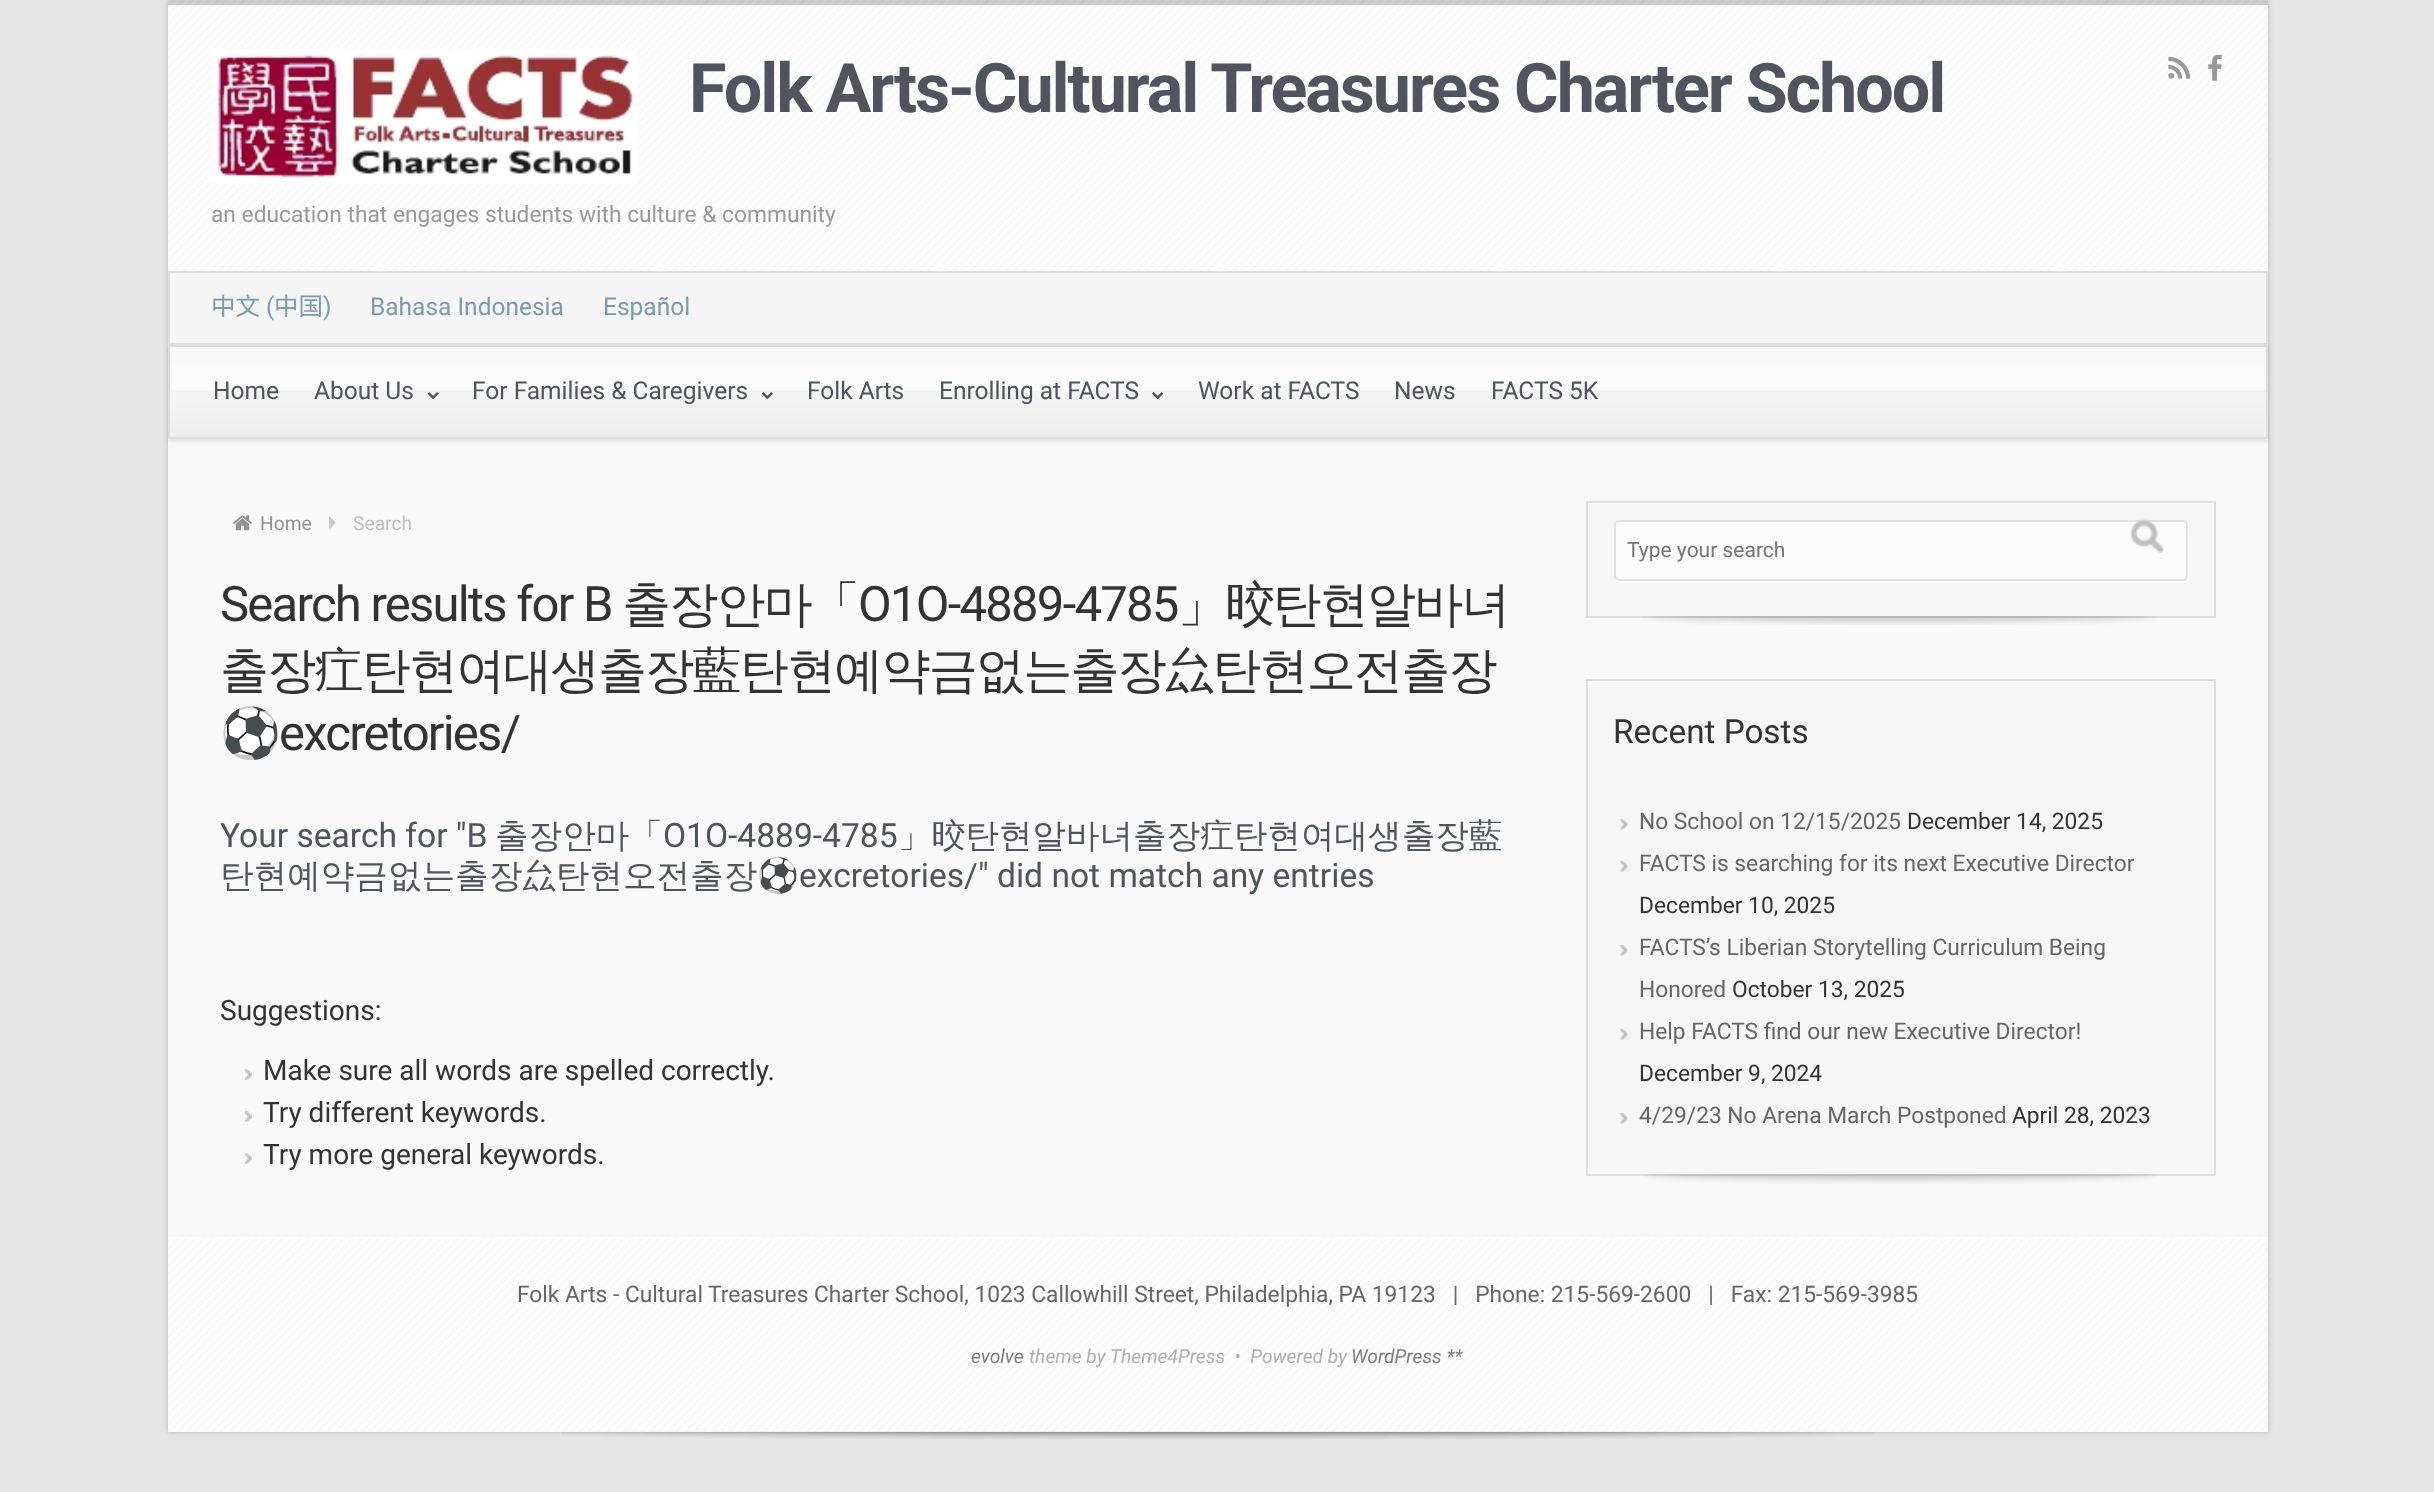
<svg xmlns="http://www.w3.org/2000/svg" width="2434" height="1492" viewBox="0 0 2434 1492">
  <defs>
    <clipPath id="clip1"><path d="M1587 502h627v114H1587z"/></clipPath>
    <clipPath id="clip2"><path d="M1587 681h627v493H1587z"/></clipPath>
  </defs>
  <rect width="100%" height="100%" fill="#e5e5e5"/>
  <image x="561" y="1432" width="1314" height="7" href="img/18.png"/>
  <path d="M168 0h2100v1432H168z" fill="#00000033" filter="blur(2.5px)"/>
  <path d="M168 439h2100v993H168z" fill="#f9f9f9"/>
  <image x="168" y="0" width="2100" height="271" href="img/1.png"/>
  <path d="M168 0h2100v5H168z" fill="#00000033"/>
  <image x="212" y="49" width="425" height="135" href="img/2.png"/>
  <image x="2168" y="56" width="23" height="23" href="img/3.png"/>
  <image x="2208" y="54" width="14" height="27" href="img/4.png"/>
  <path d="M169 272h2098v72H169z" fill="#f5f5f5" stroke="#e0dddd" stroke-width="2"/>
  <path d="M168 347h2100v94H168z" fill="#0000001a" filter="blur(2px)"/>
  <image x="168" y="344" width="2100" height="93" href="img/5.png"/>
  <path d="M169 346h2098v92H169z" fill="none" stroke="#e0dddd" stroke-width="2"/>
  <image x="427" y="392" width="12" height="8" href="img/6.png"/>
  <image x="761" y="392" width="12" height="8" href="img/7.png"/>
  <image x="1152" y="392" width="12" height="8" href="img/8.png"/>
  <image x="561" y="1431" width="1314" height="8" href="img/9.png"/>
  <image x="233" y="515" width="19" height="16" href="img/10.png"/>
  <image x="329" y="516" width="7" height="13" href="img/11.png"/>
  <image x="245" y="1069" width="7" height="11" href="img/12.png"/>
  <image x="245" y="1111" width="7" height="11" href="img/12.png"/>
  <image x="245" y="1153" width="7" height="11" href="img/12.png"/>
  <path d="M1589 504h625v112H1589z" fill="#f6f6f6"/>
  <g clip-path="url(#clip1)">
    <path d="M1414 329H2387V789H1414ZM1589 504H2216V618H1589Z" fill="#fefefe" fill-rule="evenodd"/>
  </g>
  <path d="M1587 502h628v115H1587z" fill="none" stroke="#e0dddd" stroke-width="2"/>
  <path d="M1615 580C1616 582 1618 583 1620 583H2184C2187 583 2189 581 2189 578V527C2189 525 2188 524 2187 523L2188 567C2188 571 2189 581 2182 581H1618Z" fill="#fefefe"/>
  <rect x="1614" y="520" width="574" height="61" rx="5" fill="#ffffffb3"/>
  <rect x="1615" y="521" width="572" height="59" rx="4" fill="none" stroke="#0000001a" stroke-width="2"/>
  <image x="2130" y="519" width="34" height="34" href="img/13.png"/>
  <image x="1642" y="616" width="515" height="9" href="img/14.png"/>
  <path d="M1589 682h625v492H1589z" fill="#f6f6f6"/>
  <g clip-path="url(#clip2)">
    <path d="M1414 508H2387V1348H1414ZM1589 682H2216V1176H1589Z" fill="#fefefe" fill-rule="evenodd"/>
  </g>
  <path d="M1587 680h628v495H1587z" fill="none" stroke="#e0dddd" stroke-width="2"/>
  <image x="1620" y="819" width="8" height="11" href="img/15.png"/>
  <image x="1620" y="861" width="8" height="11" href="img/15.png"/>
  <image x="1620" y="945" width="8" height="11" href="img/15.png"/>
  <image x="1620" y="1029" width="8" height="11" href="img/15.png"/>
  <image x="1620" y="1113" width="8" height="11" href="img/15.png"/>
  <image x="1643" y="1174" width="514" height="10" href="img/16.png"/>
  <path d="M168 1237h2100v2H168z" fill="#fff"/>
  <image x="168" y="1239" width="2100" height="193" href="img/17.png"/>
  <text x="689" y="112" font-family="Roboto" font-size="68.25" font-weight="bold" letter-spacing="-2.05" fill="#51545c">Folk Arts-Cultural Treasures Charter School</text>
  <text x="211" y="222" font-family="Roboto" font-size="22.75" fill="#999">an education that engages students with culture &amp; community</text>
  <text x="211" y="315" font-family="Noto Sans CJK SC" font-size="24.5" fill="#7a9cad">中文</text>
  <text x="266" y="315" font-family="Roboto" font-size="24.5" fill="#7a9cad">(</text>
  <text x="274" y="315" font-family="Noto Sans CJK SC" font-size="24.5" fill="#7a9cad">中国</text>
  <g font-family="Roboto" font-size="24.5" fill="#7a9cad">
    <text x="323" y="315">)</text>
    <text x="370" y="315">Bahasa Indonesia</text>
    <text x="603" y="315">Español</text>
  </g>
  <g font-family="Roboto" font-size="24.5" fill="#51545c">
    <text x="213" y="399">Home</text>
    <text x="314" y="399">About Us</text>
    <text x="472" y="399">For Families &amp; Caregivers</text>
    <text x="807" y="399">Folk Arts</text>
    <text x="939" y="399">Enrolling at FACTS</text>
    <text x="1198" y="399">Work at FACTS</text>
    <text x="1394" y="399">News</text>
    <text x="1491" y="399">FACTS 5K</text>
  </g>
  <text x="260" y="530" font-family="Roboto" font-size="19.25" fill="#939393">Home</text>
  <text x="353" y="530" font-family="Roboto" font-size="19.25" fill="#c1c1c1">Search</text>
  <text x="220" y="621" font-family="Roboto" font-size="49" letter-spacing="-1.75" fill="#333">Search results for B</text>
  <text x="622" y="621" font-family="WenQuanYi Zen Hei" font-size="49" font-weight="500" letter-spacing="-1.75" fill="#333">출장안마「</text>
  <text x="858" y="621" font-family="Roboto" font-size="49" letter-spacing="-1.75" fill="#333">O1O-4889-4785</text>
  <g font-family="WenQuanYi Zen Hei" font-size="49" font-weight="500" letter-spacing="-1.75" fill="#333">
    <text x="1178" y="621">」晈탄현알바녀</text>
    <text x="220" y="687">출장疘탄현여대생출장藍탄현예약금없는출장厽탄현오전출장</text>
  </g>
  <text x="220" y="750" font-family="Noto Color Emoji" font-size="49" letter-spacing="-1.75" fill="#333">⚽</text>
  <text x="279" y="750" font-family="Roboto" font-size="49" letter-spacing="-1.75" fill="#333">excretories/</text>
  <text x="220" y="847" font-family="Roboto" font-size="33.6" fill="#51545c">Your search for "B</text>
  <text x="495" y="847" font-family="WenQuanYi Zen Hei" font-size="33.6" font-weight="500" fill="#51545c">출장안마「</text>
  <text x="663" y="847" font-family="Roboto" font-size="33.6" fill="#51545c">O1O-4889-4785</text>
  <g font-family="WenQuanYi Zen Hei" font-size="33.6" font-weight="500" fill="#51545c">
    <text x="898" y="847">」晈탄현알바녀출장疘탄현여대생출장藍</text>
    <text x="220" y="887">탄현예약금없는출장厽탄현오전출장</text>
  </g>
  <text x="757" y="887" font-family="Noto Color Emoji" font-size="33.6" fill="#51545c">⚽</text>
  <text x="799" y="887" font-family="Roboto" font-size="33.6" fill="#51545c">excretories/" did not match any entries</text>
  <g font-family="Roboto" font-size="28" fill="#333">
    <text x="220" y="1020">Suggestions:</text>
    <text x="263" y="1080">Make sure all words are spelled correctly.</text>
    <text x="263" y="1122">Try different keywords.</text>
    <text x="263" y="1164">Try more general keywords.</text>
  </g>
  <text x="1627" y="557" font-family="Roboto" font-size="21" fill="#757575">Type your search</text>
  <text x="1613" y="743" font-family="Roboto" font-size="33.25" fill="#333">Recent Posts</text>
  <text x="1639" y="829" font-family="Roboto" font-size="22.75" fill="#666">No School on 12/15/2025</text>
  <text x="1907" y="829" font-family="Roboto" font-size="22.75" fill="#333">December 14, 2025</text>
  <text x="1639" y="871" font-family="Roboto" font-size="22.75" fill="#666">FACTS is searching for its next Executive Director</text>
  <text x="1639" y="913" font-family="Roboto" font-size="22.75" fill="#333">December 10, 2025</text>
  <g font-family="Roboto" font-size="22.75" fill="#666">
    <text x="1639" y="955">FACTS’s Liberian Storytelling Curriculum Being</text>
    <text x="1639" y="997">Honored</text>
  </g>
  <text x="1732" y="997" font-family="Roboto" font-size="22.75" fill="#333">October 13, 2025</text>
  <text x="1639" y="1039" font-family="Roboto" font-size="22.75" fill="#666">Help FACTS find our new Executive Director!</text>
  <text x="1639" y="1081" font-family="Roboto" font-size="22.75" fill="#333">December 9, 2024</text>
  <text x="1639" y="1123" font-family="Roboto" font-size="22.75" fill="#666">4/29/23 No Arena March Postponed</text>
  <text x="2012" y="1123" font-family="Roboto" font-size="22.75" fill="#333">April 28, 2023</text>
  <text x="517" y="1302" font-family="Roboto" font-size="22.75" fill="#666" xml:space="preserve">Folk Arts - Cultural Treasures Charter School, 1023 Callowhill Street, Philadelphia, PA 19123   |   Phone: 215-569-2600   |   Fax: 215-569-3985</text>
  <text x="971" y="1363" font-family="Roboto" font-size="19.25" font-style="italic" fill="#7e7e7e">evolve</text>
  <text x="1029" y="1363" font-family="Roboto" font-size="19.25" font-style="italic" fill="#b0b0b1" xml:space="preserve">theme by Theme4Press  •  Powered by</text>
  <text x="1351" y="1363" font-family="Roboto" font-size="19.25" font-style="italic" fill="#7e7e7e">WordPress **</text>
</svg>
